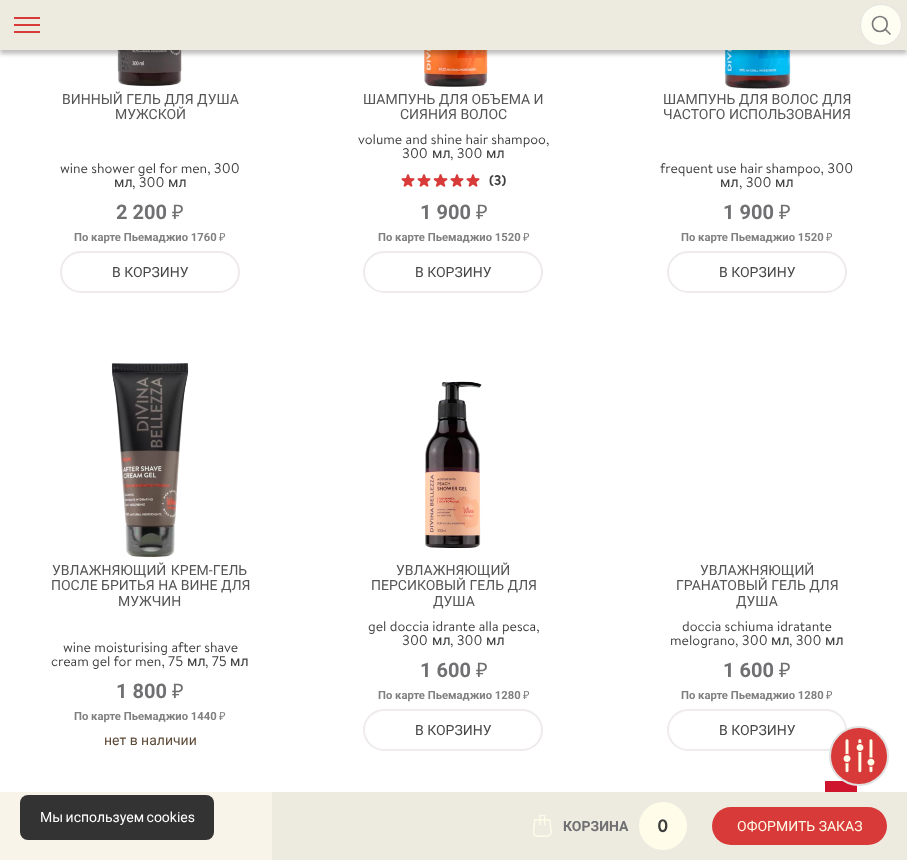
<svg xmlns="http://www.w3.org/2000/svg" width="907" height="860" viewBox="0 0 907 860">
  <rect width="100%" height="100%" fill="#fff"/>
  <image x="117" y="50" width="65" height="37" href="img/1.png"/>
  <image x="424" y="50" width="64" height="37" href="img/2.png"/>
  <image x="724" y="50" width="67" height="39" href="img/5.png"/>
  <path d="M0 4h907v50H0z" fill="#00000040" filter="blur(2px)"/>
  <path d="M0 0h907v50H0z" fill="#edebdf"/>
  <path d="M14 17h26v2H14z" fill="#d83939"/>
  <path d="M14 31h26v2H14z" fill="#d83939"/>
  <path d="M14 24h26v2H14z" fill="#d83939"/>
  <circle cx="881" cy="25" r="20.5" fill="#fffef2" stroke="#e4e4e4"/>
  <path d="M880 31.5C889.5 31.5 889.5 16.5 880 16.5C870 16.5 870 31.5 880 31.5ZM885.5 29.5L890 34" fill="none" stroke="#7a7a7a" stroke-width="1.7" stroke-linecap="round" stroke-linejoin="round"/>
  <rect x="61" y="252" width="178" height="40" rx="20" fill="none" stroke="#efebeb" stroke-width="2"/>
  <image x="401" y="174" width="79" height="13" href="img/3.png"/>
  <image x="401" y="174" width="79" height="13" href="img/4.png"/>
  <rect x="364" y="252" width="178" height="40" rx="20" fill="none" stroke="#efebeb" stroke-width="2"/>
  <rect x="668" y="252" width="178" height="40" rx="20" fill="none" stroke="#efebeb" stroke-width="2"/>
  <image x="111" y="363" width="78" height="195" href="img/6.png"/>
  <image x="425" y="381" width="57" height="167" href="img/7.png"/>
  <rect x="364" y="710" width="178" height="40" rx="20" fill="none" stroke="#efebeb" stroke-width="2"/>
  <rect x="668" y="710" width="178" height="40" rx="20" fill="none" stroke="#efebeb" stroke-width="2"/>
  <path d="M825 781h32v11H825z" fill="#cf152d"/>
  <circle cx="859" cy="756" r="29" fill="#d83939" stroke="#e1e1e1" stroke-width="2"/>
  <image x="843" y="739" width="32" height="34" href="img/8.png"/>
  <path d="M0 792h272v68H0z" fill="#f9f4e9"/>
  <rect x="20" y="795" width="194" height="45" rx="8" fill="#333"/>
  <path d="M272 792h635v68H272z" fill="#edebdf"/>
  <image x="533" y="815" width="19" height="22" href="img/9.png"/>
  <circle cx="663" cy="826" r="24" fill="#fffde9"/>
  <rect x="712" y="807" width="175" height="38" rx="19" fill="#d83939"/>
  <g font-family="Roboto" font-size="14" fill="#555">
    <text x="62" y="104">ВИННЫЙ ГЕЛЬ ДЛЯ ДУША</text>
    <text x="115" y="119">МУЖСКОЙ</text>
  </g>
  <text x="60" y="173" font-family="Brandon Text" font-size="14" fill="#3e3e3e">wine shower gel for men, 300</text>
  <text x="114" y="187" font-family="Roboto" font-size="14" fill="#3e3e3e">мл</text>
  <text x="132" y="187" font-family="Brandon Text" font-size="14" fill="#3e3e3e">, 300</text>
  <text x="168" y="187" font-family="Roboto" font-size="14" fill="#3e3e3e">мл</text>
  <text x="116" y="219" font-family="Roboto" font-size="20" font-weight="bold" fill="#707073">2 200</text>
  <text x="172" y="219" font-family="Noto Sans" font-size="20" fill="#707073">₽</text>
  <text x="74" y="241" font-family="Roboto" font-size="11.25" font-weight="bold" fill="#808080">По карте Пьемаджио 1760</text>
  <text x="219" y="241" font-family="Noto Sans" font-size="11.25" fill="#808080">₽</text>
  <text x="112" y="277" font-family="Roboto" font-size="14" fill="#464646">В КОРЗИНУ</text>
  <g font-family="Roboto" font-size="14" fill="#555">
    <text x="363" y="104">ШАМПУНЬ ДЛЯ ОБЪЕМА И</text>
    <text x="400" y="119">СИЯНИЯ ВОЛОС</text>
  </g>
  <g font-family="Brandon Text" font-size="14" fill="#3e3e3e">
    <text x="358" y="144">volume and shine hair shampoo,</text>
    <text x="402" y="158">300</text>
  </g>
  <text x="432" y="158" font-family="Roboto" font-size="14" fill="#3e3e3e">мл</text>
  <text x="450" y="158" font-family="Brandon Text" font-size="14" fill="#3e3e3e">, 300</text>
  <text x="486" y="158" font-family="Roboto" font-size="14" fill="#3e3e3e">мл</text>
  <text x="489" y="185" font-family="Brandon Text" font-size="14" font-weight="bold" fill="#3e3e3e">(3)</text>
  <text x="420" y="219" font-family="Roboto" font-size="20" font-weight="bold" fill="#707073">1 900</text>
  <text x="476" y="219" font-family="Noto Sans" font-size="20" fill="#707073">₽</text>
  <text x="378" y="241" font-family="Roboto" font-size="11.25" font-weight="bold" fill="#808080">По карте Пьемаджио 1520</text>
  <text x="523" y="241" font-family="Noto Sans" font-size="11.25" fill="#808080">₽</text>
  <text x="415" y="277" font-family="Roboto" font-size="14" fill="#464646">В КОРЗИНУ</text>
  <g font-family="Roboto" font-size="14" fill="#555">
    <text x="663" y="104">ШАМПУНЬ ДЛЯ ВОЛОС ДЛЯ</text>
    <text x="663" y="119">ЧАСТОГО ИСПОЛЬЗОВАНИЯ</text>
  </g>
  <text x="660" y="173" font-family="Brandon Text" font-size="14" fill="#3e3e3e">frequent use hair shampoo, 300</text>
  <text x="720" y="187" font-family="Roboto" font-size="14" fill="#3e3e3e">мл</text>
  <text x="739" y="187" font-family="Brandon Text" font-size="14" fill="#3e3e3e">, 300</text>
  <text x="775" y="187" font-family="Roboto" font-size="14" fill="#3e3e3e">мл</text>
  <text x="723" y="219" font-family="Roboto" font-size="20" font-weight="bold" fill="#707073">1 900</text>
  <text x="779" y="219" font-family="Noto Sans" font-size="20" fill="#707073">₽</text>
  <text x="681" y="241" font-family="Roboto" font-size="11.25" font-weight="bold" fill="#808080">По карте Пьемаджио 1520</text>
  <text x="826" y="241" font-family="Noto Sans" font-size="11.25" fill="#808080">₽</text>
  <text x="719" y="277" font-family="Roboto" font-size="14" fill="#464646">В КОРЗИНУ</text>
  <g font-family="Roboto" font-size="14" fill="#555">
    <text x="52" y="575" word-spacing="1">УВЛАЖНЯЮЩИЙ КРЕМ-ГЕЛЬ</text>
    <text x="51" y="590">ПОСЛЕ БРИТЬЯ НА ВИНЕ ДЛЯ</text>
    <text x="118" y="606">МУЖЧИН</text>
  </g>
  <g font-family="Brandon Text" font-size="14" fill="#3e3e3e">
    <text x="63" y="652">wine moisturising after shave</text>
    <text x="51" y="666">cream gel for men, 75</text>
  </g>
  <text x="187" y="666" font-family="Roboto" font-size="14" fill="#3e3e3e">мл</text>
  <text x="205" y="666" font-family="Brandon Text" font-size="14" fill="#3e3e3e">, 75</text>
  <text x="230" y="666" font-family="Roboto" font-size="14" fill="#3e3e3e">мл</text>
  <text x="116" y="698" font-family="Roboto" font-size="20" font-weight="bold" fill="#707073">1 800</text>
  <text x="172" y="698" font-family="Noto Sans" font-size="20" fill="#707073">₽</text>
  <text x="74" y="720" font-family="Roboto" font-size="11.25" font-weight="bold" fill="#808080">По карте Пьемаджио 1440</text>
  <text x="219" y="720" font-family="Noto Sans" font-size="11.25" fill="#808080">₽</text>
  <text x="104" y="745" font-family="Roboto" font-size="14" fill="#5c4a37">нет в наличии</text>
  <g font-family="Roboto" font-size="14" fill="#555">
    <text x="396" y="575">УВЛАЖНЯЮЩИЙ</text>
    <text x="371" y="590">ПЕРСИКОВЫЙ ГЕЛЬ ДЛЯ</text>
    <text x="433" y="606">ДУША</text>
  </g>
  <g font-family="Brandon Text" font-size="14" fill="#3e3e3e">
    <text x="368" y="631">gel doccia idrante alla pesca,</text>
    <text x="402" y="645">300</text>
  </g>
  <text x="432" y="645" font-family="Roboto" font-size="14" fill="#3e3e3e">мл</text>
  <text x="450" y="645" font-family="Brandon Text" font-size="14" fill="#3e3e3e">, 300</text>
  <text x="486" y="645" font-family="Roboto" font-size="14" fill="#3e3e3e">мл</text>
  <text x="420" y="677" font-family="Roboto" font-size="20" font-weight="bold" fill="#707073">1 600</text>
  <text x="476" y="677" font-family="Noto Sans" font-size="20" fill="#707073">₽</text>
  <text x="378" y="699" font-family="Roboto" font-size="11.25" font-weight="bold" fill="#808080">По карте Пьемаджио 1280</text>
  <text x="523" y="699" font-family="Noto Sans" font-size="11.25" fill="#808080">₽</text>
  <text x="415" y="735" font-family="Roboto" font-size="14" fill="#464646">В КОРЗИНУ</text>
  <g font-family="Roboto" font-size="14" fill="#555">
    <text x="700" y="575">УВЛАЖНЯЮЩИЙ</text>
    <text x="676" y="590">ГРАНАТОВЫЙ ГЕЛЬ ДЛЯ</text>
    <text x="736" y="606">ДУША</text>
  </g>
  <g font-family="Brandon Text" font-size="14" fill="#3e3e3e">
    <text x="682" y="631">doccia schiuma idratante</text>
    <text x="670" y="645">melograno, 300</text>
  </g>
  <text x="771" y="645" font-family="Roboto" font-size="14" fill="#3e3e3e">мл</text>
  <text x="789" y="645" font-family="Brandon Text" font-size="14" fill="#3e3e3e">, 300</text>
  <text x="825" y="645" font-family="Roboto" font-size="14" fill="#3e3e3e">мл</text>
  <text x="723" y="677" font-family="Roboto" font-size="20" font-weight="bold" fill="#707073">1 600</text>
  <text x="779" y="677" font-family="Noto Sans" font-size="20" fill="#707073">₽</text>
  <text x="681" y="699" font-family="Roboto" font-size="11.25" font-weight="bold" fill="#808080">По карте Пьемаджио 1280</text>
  <text x="826" y="699" font-family="Noto Sans" font-size="11.25" fill="#808080">₽</text>
  <text x="719" y="735" font-family="Roboto" font-size="14" fill="#464646">В КОРЗИНУ</text>
  <text x="40" y="822" word-spacing="-1" font-family="Roboto" font-size="14" fill="#fff">Мы используем cookies</text>
  <text x="563" y="831" font-family="Roboto" font-size="14" font-weight="bold" fill="#707073">КОРЗИНА</text>
  <text x="657" y="832" font-family="Brandon Text" font-size="18" font-weight="bold" fill="#3e3e3e">0</text>
  <text x="737" y="831" font-family="Roboto" font-size="14" fill="#fffde9">ОФОРМИТЬ ЗАКАЗ</text>
</svg>
